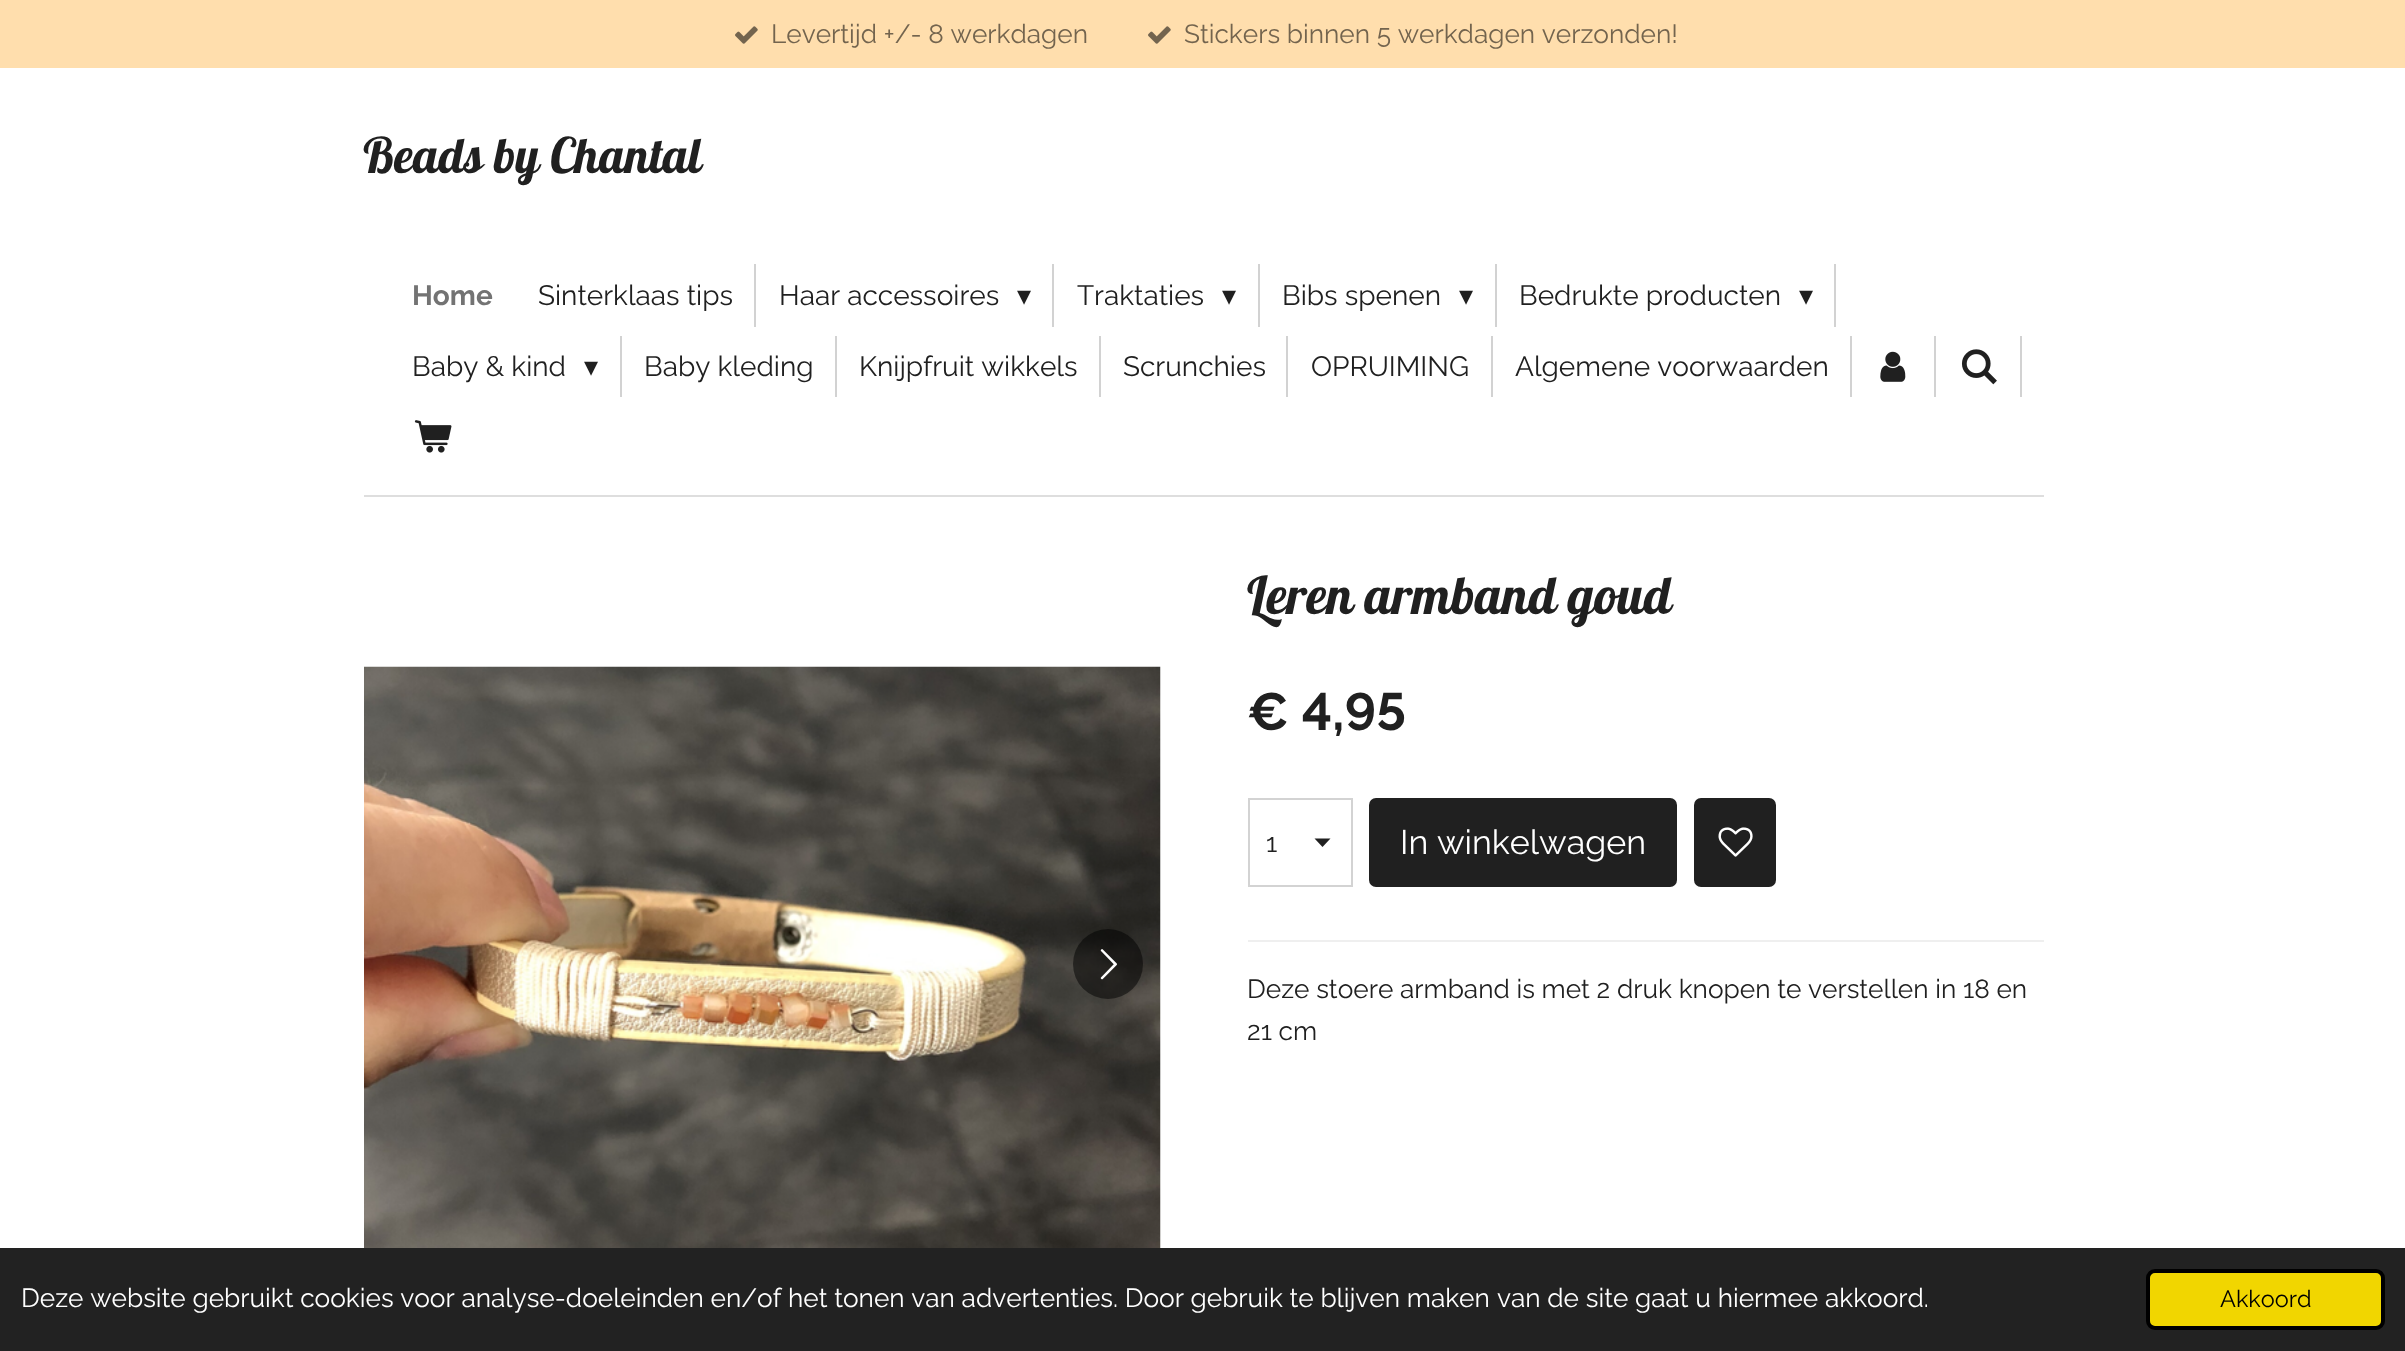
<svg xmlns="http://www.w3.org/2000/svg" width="2405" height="1351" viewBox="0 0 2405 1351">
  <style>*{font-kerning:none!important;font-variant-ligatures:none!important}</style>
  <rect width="100%" height="100%" fill="#fff"/>
  <path d="M0 0h2405v68H0z" fill="#ffdead"/>
  <image x="735" y="26" width="23" height="18" href="img/1.png"/>
  <image x="1148" y="26" width="23" height="18" href="img/1.png"/>
  <path d="M364 495h1680v2H364z" fill="#dedede"/>
  <path d="M754 264h2v63H754z" fill="#d2d2d2"/>
  <path d="M1052 264h2v63H1052z" fill="#d2d2d2"/>
  <path d="M1258 264h2v63H1258z" fill="#d2d2d2"/>
  <path d="M1495 264h2v63H1495z" fill="#d2d2d2"/>
  <path d="M1834 264h2v63H1834z" fill="#d2d2d2"/>
  <path d="M620 336h2v61H620z" fill="#d2d2d2"/>
  <path d="M835 336h2v61H835z" fill="#d2d2d2"/>
  <path d="M1099 336h2v61H1099z" fill="#d2d2d2"/>
  <path d="M1286 336h2v61H1286z" fill="#d2d2d2"/>
  <path d="M1491 336h2v61H1491z" fill="#d2d2d2"/>
  <path d="M1850 336h2v61H1850z" fill="#d2d2d2"/>
  <image x="1880" y="351" width="26" height="31" href="img/2.png"/>
  <path d="M1934 336h2v61H1934z" fill="#d2d2d2"/>
  <image x="1961" y="349" width="36" height="36" href="img/3.png"/>
  <path d="M2020 336h2v61H2020z" fill="#d2d2d2"/>
  <image x="414" y="420" width="38" height="33" href="img/4.png"/>
  <image x="364" y="666" width="797" height="582" href="img/5.png"/>
  <circle cx="1108" cy="964" r="35" fill="#00000080"/>
  <image x="1100" y="949" width="17" height="31" href="img/6.png"/>
  <path d="M1322.5 847L1314.5 838.5H1330.5Z" fill="#202020"/>
  <path d="M1249 799h103v87H1249z" fill="none" stroke="#d3d3d3" stroke-width="2"/>
  <rect x="1369" y="798" width="308" height="89" rx="7" fill="#202020"/>
  <rect x="1694" y="798" width="82" height="89" rx="7" fill="#202020"/>
  <image x="1718" y="827" width="35" height="30" href="img/7.png"/>
  <path d="M1248 940h796v2H1248z" fill="#efefef"/>
  <path d="M0 1248h2405v103H0z" fill="#222"/>
  <rect x="2148" y="1271" width="235" height="57" rx="7" fill="#f1d600" stroke="#000" stroke-width="4"/>
  <g font-family="Raleway" font-size="26.25" fill="#73644e">
    <text x="771" y="43">Levertijd +/- 8 werkdagen</text>
    <text x="1184" y="43">Stickers binnen 5 werkdagen verzonden!</text>
  </g>
  <text x="363" y="173" font-family="Lobster" font-size="49" fill="#202020">Beads by Chantal</text>
  <text x="412" y="305" font-family="Raleway" font-size="28" font-weight="bold" fill="#737373">Home</text>
  <g font-family="Raleway" font-size="28" fill="#202020">
    <text x="538" y="305">Sinterklaas tips</text>
    <text x="779" y="305">Haar accessoires</text>
  </g>
  <text x="1017" y="305" font-family="DejaVu Sans" font-size="28" fill="#202020">▾</text>
  <text x="1077" y="305" font-family="Raleway" font-size="28" fill="#202020">Traktaties</text>
  <text x="1222" y="305" font-family="DejaVu Sans" font-size="28" fill="#202020">▾</text>
  <text x="1282" y="305" font-family="Raleway" font-size="28" fill="#202020">Bibs spenen</text>
  <text x="1459" y="305" font-family="DejaVu Sans" font-size="28" fill="#202020">▾</text>
  <text x="1519" y="305" font-family="Raleway" font-size="28" fill="#202020">Bedrukte producten</text>
  <text x="1799" y="305" font-family="DejaVu Sans" font-size="28" fill="#202020">▾</text>
  <text x="412" y="376" font-family="Raleway" font-size="28" fill="#202020">Baby &amp; kind</text>
  <text x="584" y="376" font-family="DejaVu Sans" font-size="28" fill="#202020">▾</text>
  <g font-family="Raleway" font-size="28" fill="#202020">
    <text x="644" y="376">Baby kleding</text>
    <text x="859" y="376">Knijpfruit wikkels</text>
    <text x="1123" y="376">Scrunchies</text>
    <text x="1311" y="376">OPRUIMING</text>
    <text x="1515" y="376">Algemene voorwaarden</text>
  </g>
  <text x="1247" y="614" font-family="Lobster" font-size="52.5" fill="#202020">Leren armband goud</text>
  <text x="1247" y="730" font-family="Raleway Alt" font-size="52.5" font-weight="bold" fill="#202020">€ 4,95</text>
  <text x="1266" y="852" font-family="Raleway" font-size="26.25" fill="#202020">1</text>
  <text x="1400" y="854" font-family="Raleway" font-size="34" fill="#fff">In winkelwagen</text>
  <g font-family="Raleway" font-size="26.25" fill="#202020">
    <text x="1247" y="998">Deze stoere armband is met 2 druk knopen te verstellen in 18 en</text>
    <text x="1247" y="1040">21 cm</text>
  </g>
  <text x="21" y="1307" font-family="Raleway" font-size="26.25" fill="#fff">Deze website gebruikt cookies voor analyse-doeleinden en/of</text>
  <text x="788" y="1307" font-family="Raleway" font-size="26.25" fill="#fff">het tonen van advertenties. Door gebruik te blijven maken</text>
  <text x="1497" y="1307" font-family="Raleway" font-size="26.25" fill="#fff">van de site gaat u hiermee akkoord.</text>
  <text x="2220" y="1307" font-family="Raleway" font-size="23.5" fill="#000">Akkoord</text>
</svg>
